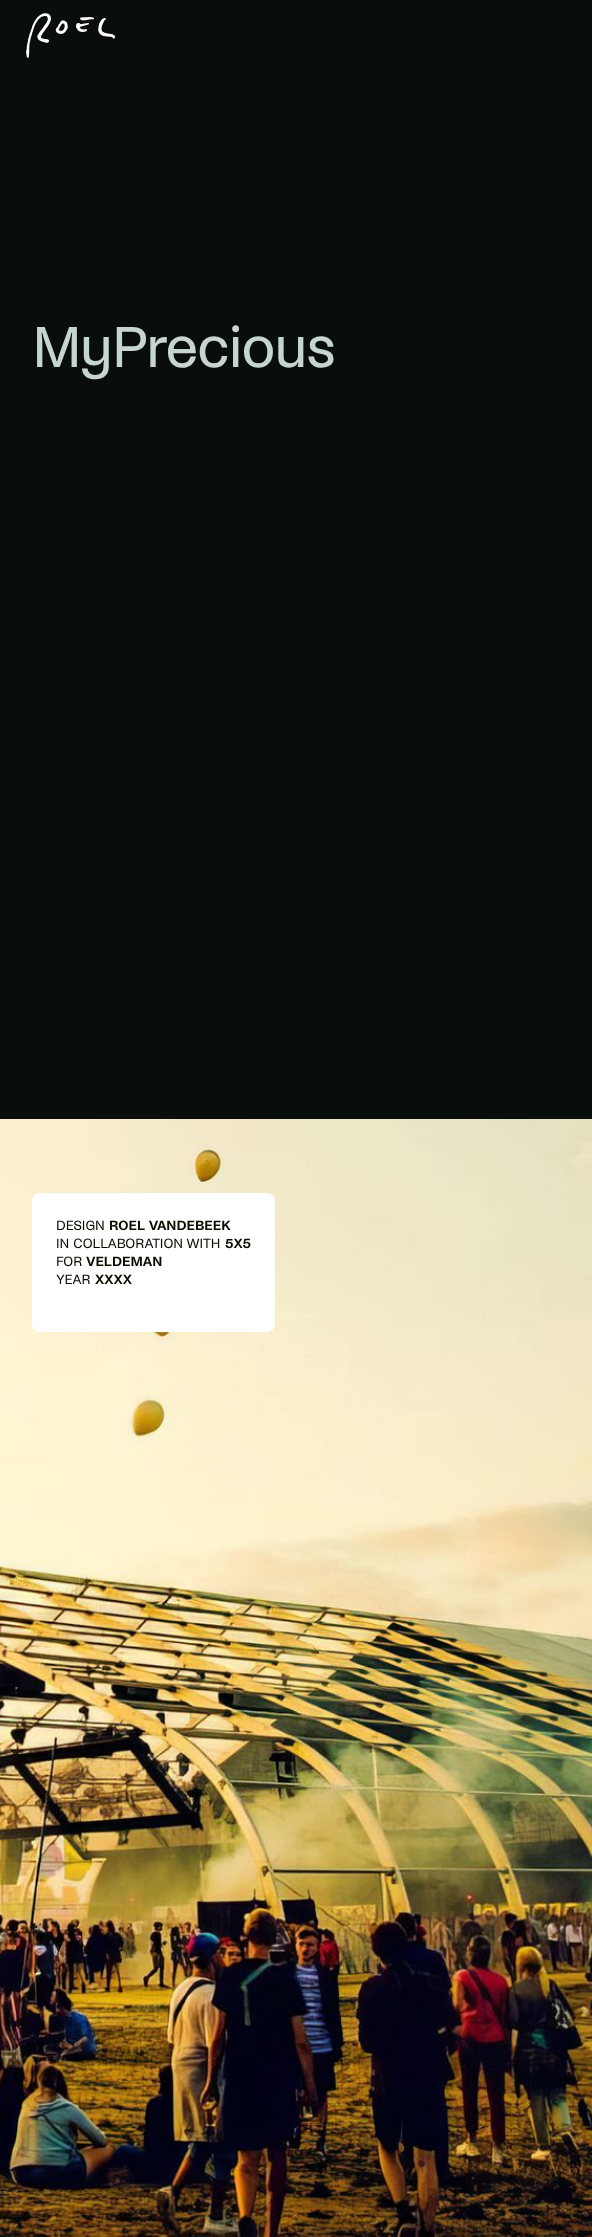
<svg xmlns="http://www.w3.org/2000/svg" width="592" height="2237" viewBox="0 0 592 2237">
  <rect width="100%" height="100%" fill="#090e0a"/>
  <image x="26" y="13" width="90" height="45" href="img/1.png"/>
  <image x="0" y="1119" width="592" height="1118" href="img/2.png"/>
  <rect x="32" y="1193" width="243" height="139" rx="8" fill="#fff"/>
  <text x="32" y="367" font-family="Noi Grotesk" font-size="60" letter-spacing="-1.25" fill="#c6d5d0">MyPrecious</text>
  <text x="56" y="1230" font-family="Noi Grotesk" font-size="14" fill="#0d0b00">DESIGN</text>
  <text x="109" y="1230" font-family="Noi Grotesk" font-size="14" font-weight="600" fill="#0d0b00">ROEL VANDEBEEK</text>
  <text x="56" y="1248" font-family="Noi Grotesk" font-size="14" fill="#0d0b00">IN COLLABORATION WITH</text>
  <text x="225" y="1248" font-family="Noi Grotesk" font-size="14" font-weight="600" fill="#0d0b00">5X5</text>
  <text x="56" y="1266" font-family="Noi Grotesk" font-size="14" fill="#0d0b00">FOR</text>
  <text x="86" y="1266" font-family="Noi Grotesk" font-size="14" font-weight="600" fill="#0d0b00">VELDEMAN</text>
  <text x="56" y="1284" font-family="Noi Grotesk" font-size="14" fill="#0d0b00">YEAR</text>
  <text x="95" y="1284" font-family="Noi Grotesk" font-size="14" font-weight="600" fill="#0d0b00">XXXX</text>
</svg>
